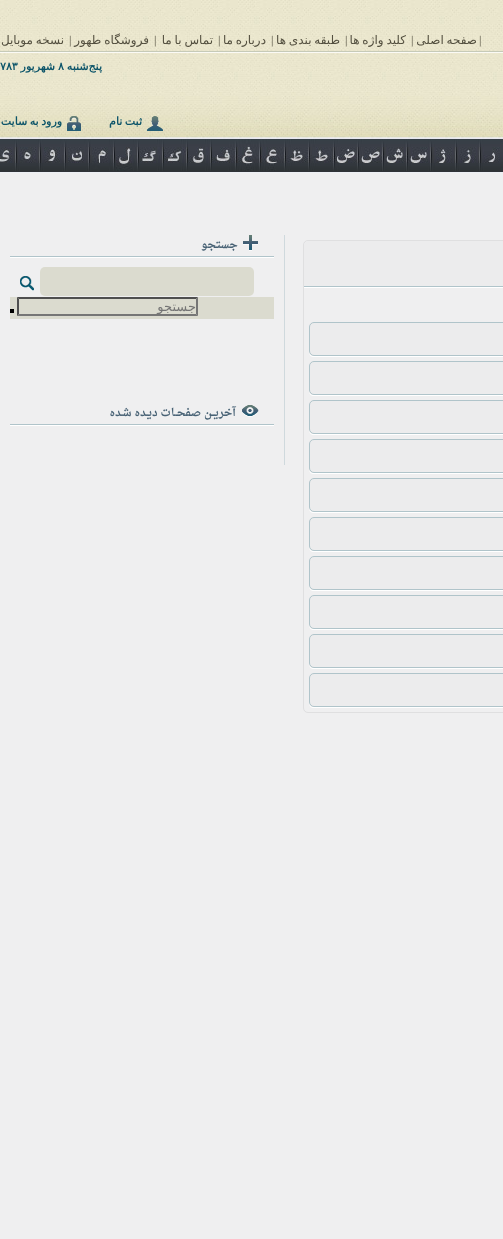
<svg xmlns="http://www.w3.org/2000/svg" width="503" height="1239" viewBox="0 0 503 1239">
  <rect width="100%" height="100%" fill="#efeff0"/>
  <image x="0" y="0" width="503" height="173" href="img/1.png"/>
  <image x="0" y="51" width="503" height="2" href="img/2.png"/>
  <image x="147" y="116" width="16" height="15" href="img/3.png"/>
  <image x="67" y="116" width="14" height="15" href="img/4.png"/>
  <image x="0" y="139" width="501" height="32" href="img/5.png"/>
  <rect x="303.5" y="240.5" width="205" height="472" rx="4.5" fill="none" stroke="#dfdfe0"/>
  <path d="M304 287h199v1H304z" fill="#fff"/>
  <path d="M309 241H503C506 241 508 243 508 246V287H304V246C304 243 306 241 309 241Z" fill="#ececed"/>
  <path d="M304 286h199v1H304z" fill="#b0c4ca"/>
  <path d="M309 351V352C309 355 311 357 314 357H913C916 357 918 355 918 352V351C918 354 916 356 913 356H314C311 356 309 354 309 351Z" fill="#fff"/>
  <rect x="309.5" y="322.5" width="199" height="33" rx="4.5" fill="#ececed" stroke="#b0c4ca"/>
  <path d="M309 390V391C309 394 311 396 314 396H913C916 396 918 394 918 391V390C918 393 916 395 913 395H314C311 395 309 393 309 390Z" fill="#fff"/>
  <rect x="309.5" y="361.5" width="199" height="33" rx="4.5" fill="#ececed" stroke="#b0c4ca"/>
  <path d="M309 429V430C309 433 311 435 314 435H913C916 435 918 433 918 430V429C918 432 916 434 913 434H314C311 434 309 432 309 429Z" fill="#fff"/>
  <rect x="309.5" y="400.5" width="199" height="33" rx="4.5" fill="#ececed" stroke="#b0c4ca"/>
  <path d="M309 468V469C309 472 311 474 314 474H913C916 474 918 472 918 469V468C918 471 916 473 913 473H314C311 473 309 471 309 468Z" fill="#fff"/>
  <rect x="309.5" y="439.5" width="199" height="33" rx="4.5" fill="#ececed" stroke="#b0c4ca"/>
  <path d="M309 507V508C309 511 311 513 314 513H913C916 513 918 511 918 508V507C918 510 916 512 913 512H314C311 512 309 510 309 507Z" fill="#fff"/>
  <rect x="309.5" y="478.5" width="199" height="33" rx="4.5" fill="#ececed" stroke="#b0c4ca"/>
  <path d="M309 546V547C309 550 311 552 314 552H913C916 552 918 550 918 547V546C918 549 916 551 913 551H314C311 551 309 549 309 546Z" fill="#fff"/>
  <rect x="309.5" y="517.5" width="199" height="33" rx="4.5" fill="#ececed" stroke="#b0c4ca"/>
  <path d="M309 585V586C309 589 311 591 314 591H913C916 591 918 589 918 586V585C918 588 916 590 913 590H314C311 590 309 588 309 585Z" fill="#fff"/>
  <rect x="309.5" y="556.5" width="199" height="33" rx="4.5" fill="#ececed" stroke="#b0c4ca"/>
  <path d="M309 624V625C309 628 311 630 314 630H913C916 630 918 628 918 625V624C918 627 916 629 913 629H314C311 629 309 627 309 624Z" fill="#fff"/>
  <rect x="309.5" y="595.5" width="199" height="33" rx="4.5" fill="#ececed" stroke="#b0c4ca"/>
  <path d="M309 663V664C309 667 311 669 314 669H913C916 669 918 667 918 664V663C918 666 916 668 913 668H314C311 668 309 666 309 663Z" fill="#fff"/>
  <rect x="309.5" y="634.5" width="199" height="33" rx="4.5" fill="#ececed" stroke="#b0c4ca"/>
  <path d="M309 702V703C309 706 311 708 314 708H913C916 708 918 706 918 703V702C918 705 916 707 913 707H314C311 707 309 705 309 702Z" fill="#fff"/>
  <rect x="309.5" y="673.5" width="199" height="33" rx="4.5" fill="#ececed" stroke="#b0c4ca"/>
  <path d="M284 235h1v230H284z" fill="#cfd9dd"/>
  <path d="M10 257h264v1H10z" fill="#fff"/>
  <path d="M10 256h264v1H10z" fill="#b0c4ca"/>
  <image x="243" y="235" width="15" height="16" href="img/6.png"/>
  <rect x="40" y="267" width="214" height="29" rx="5" fill="#dbdbcf"/>
  <image x="20" y="276" width="14" height="15" href="img/7.png"/>
  <path d="M10 297h264v22H10z" fill="#dbdbcf"/>
  <path d="M17 297H198L196 299H19Z" fill="#4f4f4f"/>
  <path d="M198 297V316L196 314V299Z" fill="#767676"/>
  <path d="M198 316H17L19 314H196Z" fill="#767676"/>
  <path d="M17 316V297L19 299V314Z" fill="#4f4f4f"/>
  <path d="M10 309h4v4H10z" fill="#000"/>
  <path d="M10 425h264v1H10z" fill="#fff"/>
  <path d="M10 424h264v1H10z" fill="#b0c4ca"/>
  <image x="242" y="405" width="17" height="12" href="img/8.png"/>
  <text x="479" y="44" font-family="Liberation Serif" font-size="12" fill="#534f3f">|</text>
  <text x="477" y="44" word-spacing="-1" font-family="DejaVu Sans" font-size="12" direction="rtl" fill="#534f3f">صفحه اصلی</text>
  <text x="411" y="44" font-family="Liberation Serif" font-size="12" fill="#534f3f">|</text>
  <text x="406" y="44" word-spacing="-1" font-family="DejaVu Sans" font-size="12" direction="rtl" fill="#534f3f">کلید واژه ها</text>
  <text x="345" y="44" font-family="Liberation Serif" font-size="12" fill="#534f3f">|</text>
  <text x="340" y="44" word-spacing="-1" font-family="DejaVu Sans" font-size="12" direction="rtl" fill="#534f3f">طبقه بندی ها</text>
  <text x="271" y="44" font-family="Liberation Serif" font-size="12" fill="#534f3f">|</text>
  <text x="266" y="44" word-spacing="-1" font-family="DejaVu Sans" font-size="12" direction="rtl" fill="#534f3f">درباره ما</text>
  <text x="218" y="44" font-family="Liberation Serif" font-size="12" fill="#534f3f">|</text>
  <text x="213" y="44" word-spacing="-1" font-family="DejaVu Sans" font-size="12" direction="rtl" fill="#534f3f">تماس با ما</text>
  <text x="154" y="44" font-family="Liberation Serif" font-size="12" fill="#534f3f">|</text>
  <text x="149" y="44" word-spacing="-1" font-family="DejaVu Sans" font-size="12" direction="rtl" fill="#534f3f">فروشگاه طهور</text>
  <text x="69" y="44" font-family="Liberation Serif" font-size="12" fill="#534f3f">|</text>
  <text x="64" y="44" word-spacing="-1" font-family="DejaVu Sans" font-size="12" direction="rtl" fill="#534f3f">نسخه موبایل</text>
  <text x="102" y="70" font-family="DejaVu Sans" font-size="11" font-weight="bold" direction="rtl" fill="#0c5469">پنج‌شنبه</text>
  <text x="58" y="70" font-family="DejaVu Sans" font-size="11" font-weight="bold" fill="#0c5469">۸</text>
  <text x="55" y="70" font-family="DejaVu Sans" font-size="11" font-weight="bold" direction="rtl" fill="#0c5469">شهريور</text>
  <text x="0" y="70" font-family="DejaVu Sans" font-size="11" font-weight="bold" fill="#0c5469">۷۸۳</text>
  <g font-family="DejaVu Sans" font-size="11" font-weight="bold" direction="rtl" fill="#0c5469">
    <text x="142" y="125" word-spacing="-1">ثبت نام</text>
    <text x="62" y="125" word-spacing="-1">ورود به سایت</text>
  </g>
  <text x="238" y="248" font-family="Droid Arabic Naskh" font-size="11" font-weight="bold" direction="rtl" fill="#486275">جستجو</text>
  <text x="196" y="311" font-family="DejaVu Sans" font-size="13" direction="rtl" fill="#757575">جستجو</text>
  <text x="236" y="416" font-family="Droid Arabic Naskh" font-size="11" font-weight="bold" direction="rtl" fill="#486275">آخریــن صفحــات دیـده شـده</text>
</svg>
